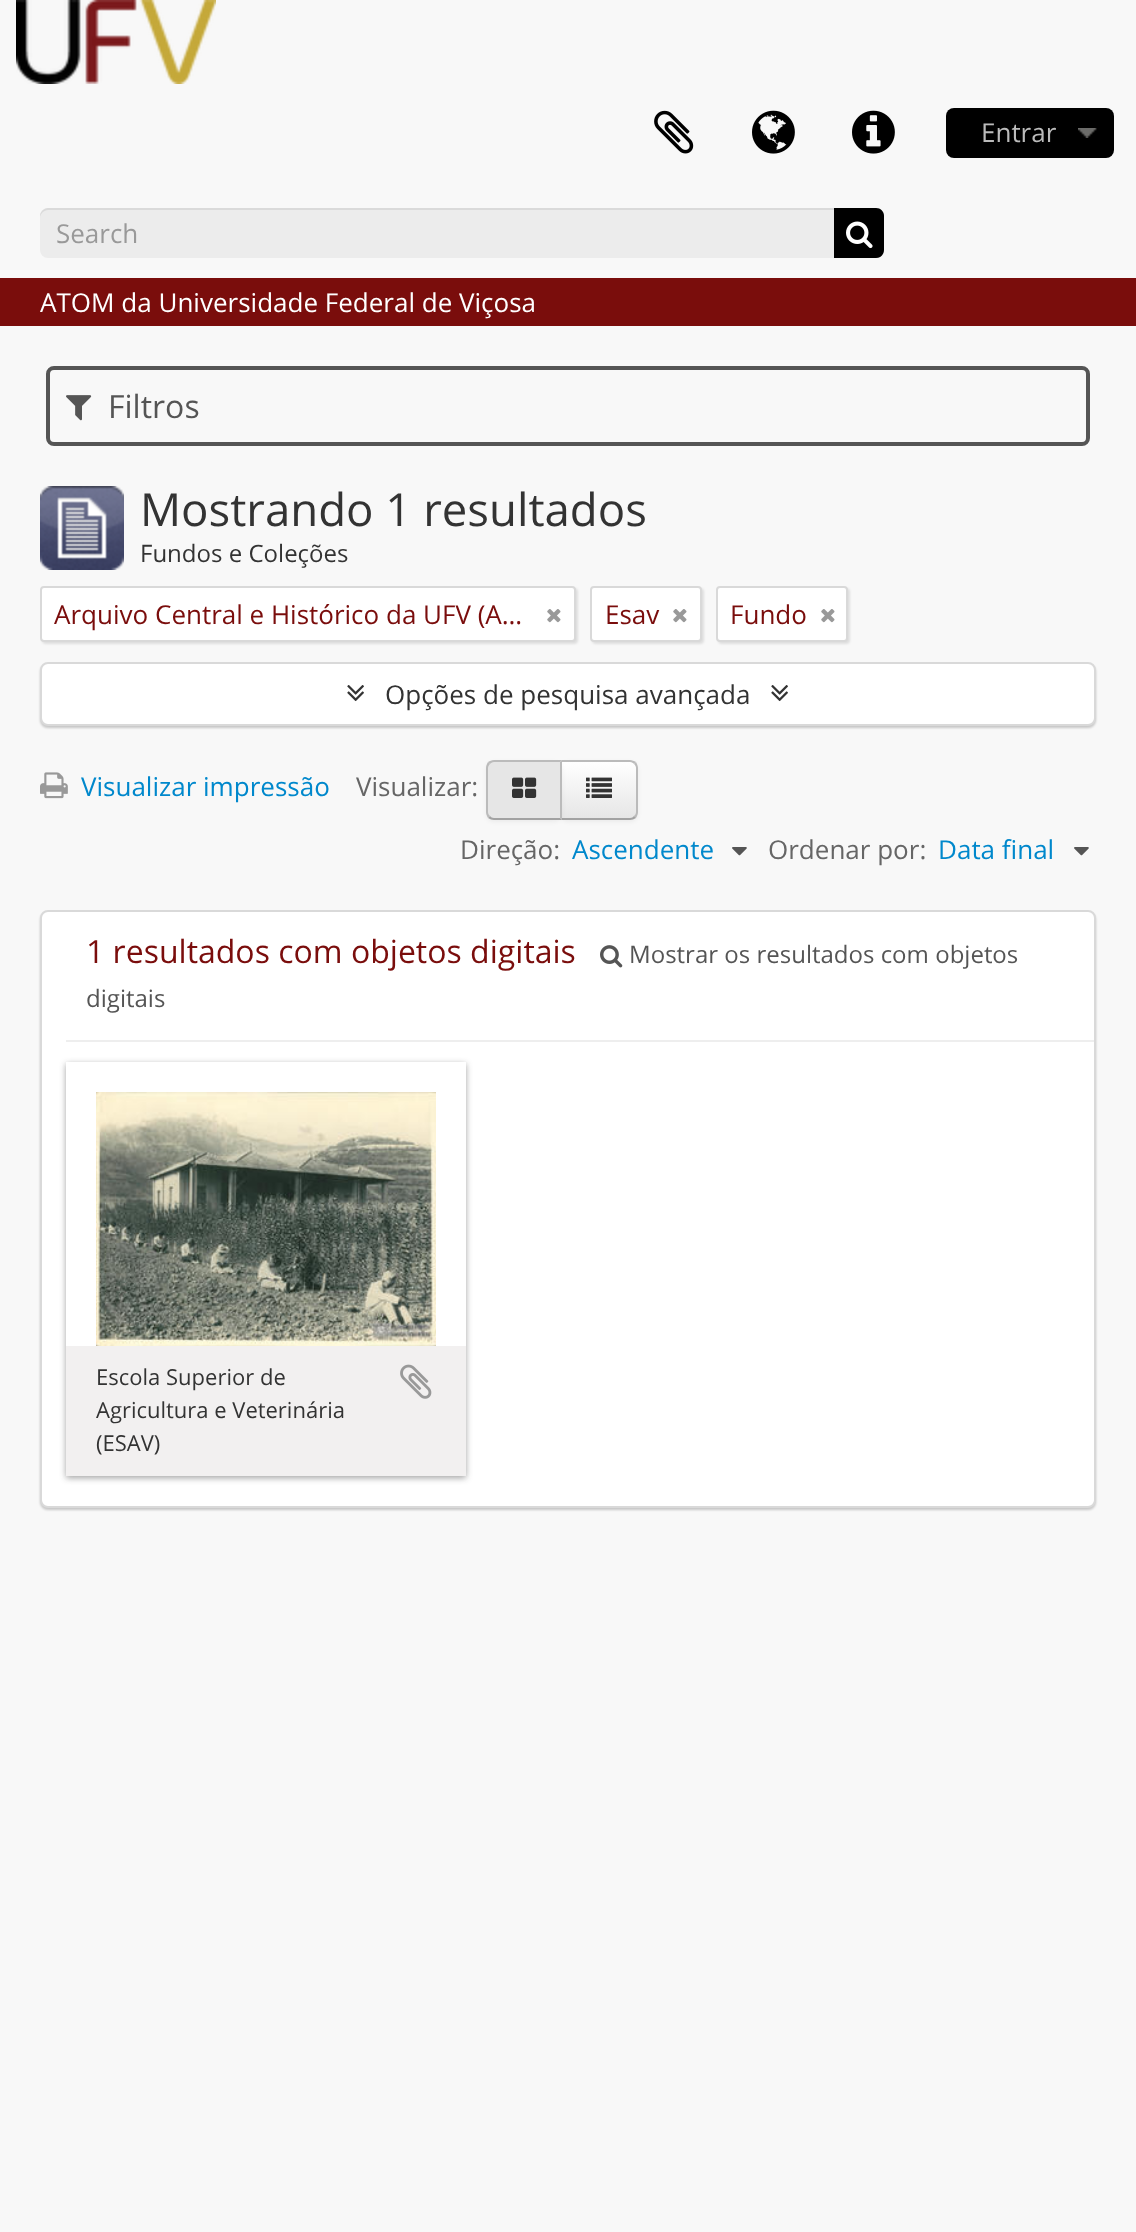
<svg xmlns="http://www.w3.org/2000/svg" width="1136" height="2232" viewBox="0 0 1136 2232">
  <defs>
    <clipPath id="clip1"><path d="M560 760H630C634.5 760 638 763.5 638 768V812C638 816.5 634.5 820 630 820H560Z"/></clipPath>
    <linearGradient id="g1" gradientUnits="userSpaceOnUse" x1="599" y1="762" x2="599" y2="818"><stop offset="0" stop-color="#fff"/><stop offset="1" stop-color="#e6e6e6"/></linearGradient>
    <clipPath id="clip2"><path d="M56 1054H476V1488H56ZM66 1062H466V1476H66Z" clip-rule="evenodd"/></clipPath>
  </defs>
  <rect width="100%" height="100%" fill="#f8f8f8"/>
  <image x="16" y="0" width="200" height="84" href="img/1.png"/>
  <image x="654" y="110" width="40" height="44" href="img/2.png"/>
  <image x="752" y="110" width="43" height="44" href="img/3.png"/>
  <image x="852" y="110" width="43" height="44" href="img/4.png"/>
  <rect x="946" y="108" width="168" height="50" rx="8" fill="#000"/>
  <image x="1078" y="128" width="19" height="10" href="img/5.png"/>
  <rect x="40" y="208" width="844" height="50" rx="8" fill="#ececec"/>
  <path d="M48 210H876C880 210 884 214 884 218V216C884 212 880 208 876 208H48C44 208 40 212 40 216V218C40 214 44 210 48 210Z" fill="#dadada"/>
  <path d="M834 208H876C880.5 208 884 211.5 884 216V250C884 254.5 880.5 258 876 258H834Z" fill="#000"/>
  <image x="846" y="221" width="27" height="28" href="img/6.png"/>
  <path d="M0 278h1136v48H0z" fill="#7a0d0c"/>
  <rect x="48" y="368" width="1040" height="76" rx="6" fill="none" stroke="#555" stroke-width="4"/>
  <image x="66" y="395" width="26" height="26" href="img/7.png"/>
  <image x="40" y="486" width="84" height="84" href="img/8.png"/>
  <rect x="42" y="588" width="536" height="56" rx="4" fill="#0000001a" filter="blur(1px)"/>
  <rect x="41" y="587" width="534" height="54" rx="3" fill="#fff" stroke="#d9d9d9" stroke-width="2"/>
  <image x="547" y="609" width="14" height="14" href="img/9.png"/>
  <rect x="592" y="588" width="112" height="56" rx="4" fill="#0000001a" filter="blur(1px)"/>
  <rect x="591" y="587" width="110" height="54" rx="3" fill="#fff" stroke="#d9d9d9" stroke-width="2"/>
  <image x="673" y="609" width="14" height="14" href="img/9.png"/>
  <rect x="718" y="588" width="132" height="56" rx="4" fill="#0000001a" filter="blur(1px)"/>
  <rect x="717" y="587" width="130" height="54" rx="3" fill="#fff" stroke="#d9d9d9" stroke-width="2"/>
  <image x="821" y="609" width="14" height="14" href="img/9.png"/>
  <rect x="40" y="664" width="1056" height="64" rx="8" fill="#00000033" filter="blur(1px)"/>
  <rect x="41" y="663" width="1054" height="62" rx="7" fill="#fff" stroke="#d9d9d9" stroke-width="2"/>
  <image x="347" y="685" width="17" height="17" href="img/10.png"/>
  <image x="771" y="685" width="17" height="17" href="img/10.png"/>
  <image x="40" y="772" width="28" height="27" href="img/11.png"/>
  <rect x="560" y="762" width="78" height="60" rx="8" fill="#0000000d" filter="blur(2px)"/>
  <g clip-path="url(#clip1)">
    <path d="M562 762h76v56H562z" fill="url(#g1)"/>
  </g>
  <path d="M560 760L562 762H630C632 762 633 763 634 764L636 762C634 761 632 760 630 760Z" fill="#bbb"/>
  <path d="M638 812V768C638 766 637 764 636 762L634 764C635 765 636 766 636 768V812C636 814 635 815 634 816L636 818C637 816 638 814 638 812Z" fill="#bbb"/>
  <path d="M630 820C632 820 634 819 636 818L634 816C633 817 632 818 630 818H562L560 820Z" fill="#a2a2a2"/>
  <rect x="486" y="762" width="76" height="60" rx="8" fill="#0000000d" filter="blur(2px)"/>
  <path d="M494 760H562V820H494C489.5 820 486 816.5 486 812V768C486 763.5 489.5 760 494 760Z" fill="#e6e6e6"/>
  <path d="M494 760C492 760 490 761 488 762L490 764C491 763 492 762 494 762H560L562 760Z" fill="#bbb"/>
  <path d="M562 760L560 762V818L562 820Z" fill="#bbb"/>
  <path d="M562 820L560 818H494C492 818 491 817 490 816L488 818C490 819 492 820 494 820Z" fill="#a2a2a2"/>
  <path d="M486 768V812C486 814 487 816 488 818L490 816C489 815 488 814 488 812V768C488 766 489 765 490 764L488 762C487 764 486 766 486 768Z" fill="#bbb"/>
  <image x="512" y="777" width="25" height="21" href="img/12.png"/>
  <image x="586" y="777" width="26" height="21" href="img/13.png"/>
  <image x="732" y="847" width="15" height="9" href="img/14.png"/>
  <image x="1074" y="847" width="15" height="9" href="img/14.png"/>
  <rect x="40" y="912" width="1056" height="598" rx="8" fill="#00000033" filter="blur(1px)"/>
  <rect x="41" y="911" width="1054" height="596" rx="7" fill="#fff" stroke="#d9d9d9" stroke-width="2"/>
  <path d="M66 1040h1028v2H66z" fill="#eee"/>
  <image x="600" y="945" width="23" height="23" href="img/15.png"/>
  <g clip-path="url(#clip2)">
    <path d="M66 1064h400v414H66z" fill="#19191966" filter="blur(3px)"/>
  </g>
  <image x="96" y="1092" width="340" height="254" href="img/16.png"/>
  <path d="M66 1346h400v130H66z" fill="#f2f0f0"/>
  <image x="400" y="1364" width="32" height="35" href="img/17.png"/>
  <text x="981" y="142" font-family="Open Sans" font-size="26" fill="#bbb">Entrar</text>
  <text x="56" y="243" font-family="Open Sans" font-size="26" fill="#999">Search</text>
  <text x="40" y="312" font-family="Open Sans" font-size="26" fill="#fff">ATOM da Universidade Federal de Viçosa</text>
  <text x="108" y="418" font-family="Open Sans" font-size="32" fill="#555">Filtros</text>
  <text x="140" y="526" font-family="Open Sans" font-size="45.5" fill="#333">Mostrando 1 resultados</text>
  <text x="140" y="562" font-family="Open Sans" font-size="24" fill="#333">Fundos e Coleções</text>
  <g font-family="Open Sans" font-size="26" fill="#7a0d0c">
    <text x="54" y="624">Arquivo Central e Histórico da UFV (A…</text>
    <text x="605" y="624">Esav</text>
    <text x="730" y="624">Fundo</text>
  </g>
  <text x="385" y="704" font-family="Open Sans" font-size="26" fill="#333">Opções de pesquisa avançada</text>
  <text x="81" y="796" font-family="Open Sans" font-size="26" fill="#08c">Visualizar impressão</text>
  <g font-family="Open Sans" font-size="26" fill="#666">
    <text x="356" y="796">Visualizar:</text>
    <text x="460" y="859">Direção:</text>
  </g>
  <text x="572" y="859" font-family="Open Sans" font-size="26" fill="#08c">Ascendente</text>
  <text x="768" y="859" font-family="Open Sans" font-size="26" fill="#666">Ordenar por:</text>
  <text x="938" y="859" font-family="Open Sans" font-size="26" fill="#08c">Data final</text>
  <text x="86" y="963" font-family="Open Sans" font-size="32" fill="#7a0d0c">1 resultados com objetos digitais</text>
  <g font-family="Open Sans" font-size="24" fill="#555">
    <text x="629" y="963">Mostrar os resultados com objetos</text>
    <text x="86" y="1007">digitais</text>
  </g>
  <g font-family="Open Sans" font-size="22" fill="#333">
    <text x="96" y="1385">Escola Superior de</text>
    <text x="96" y="1418">Agricultura e Veterinária</text>
    <text x="96" y="1451">(ESAV)</text>
  </g>
</svg>
